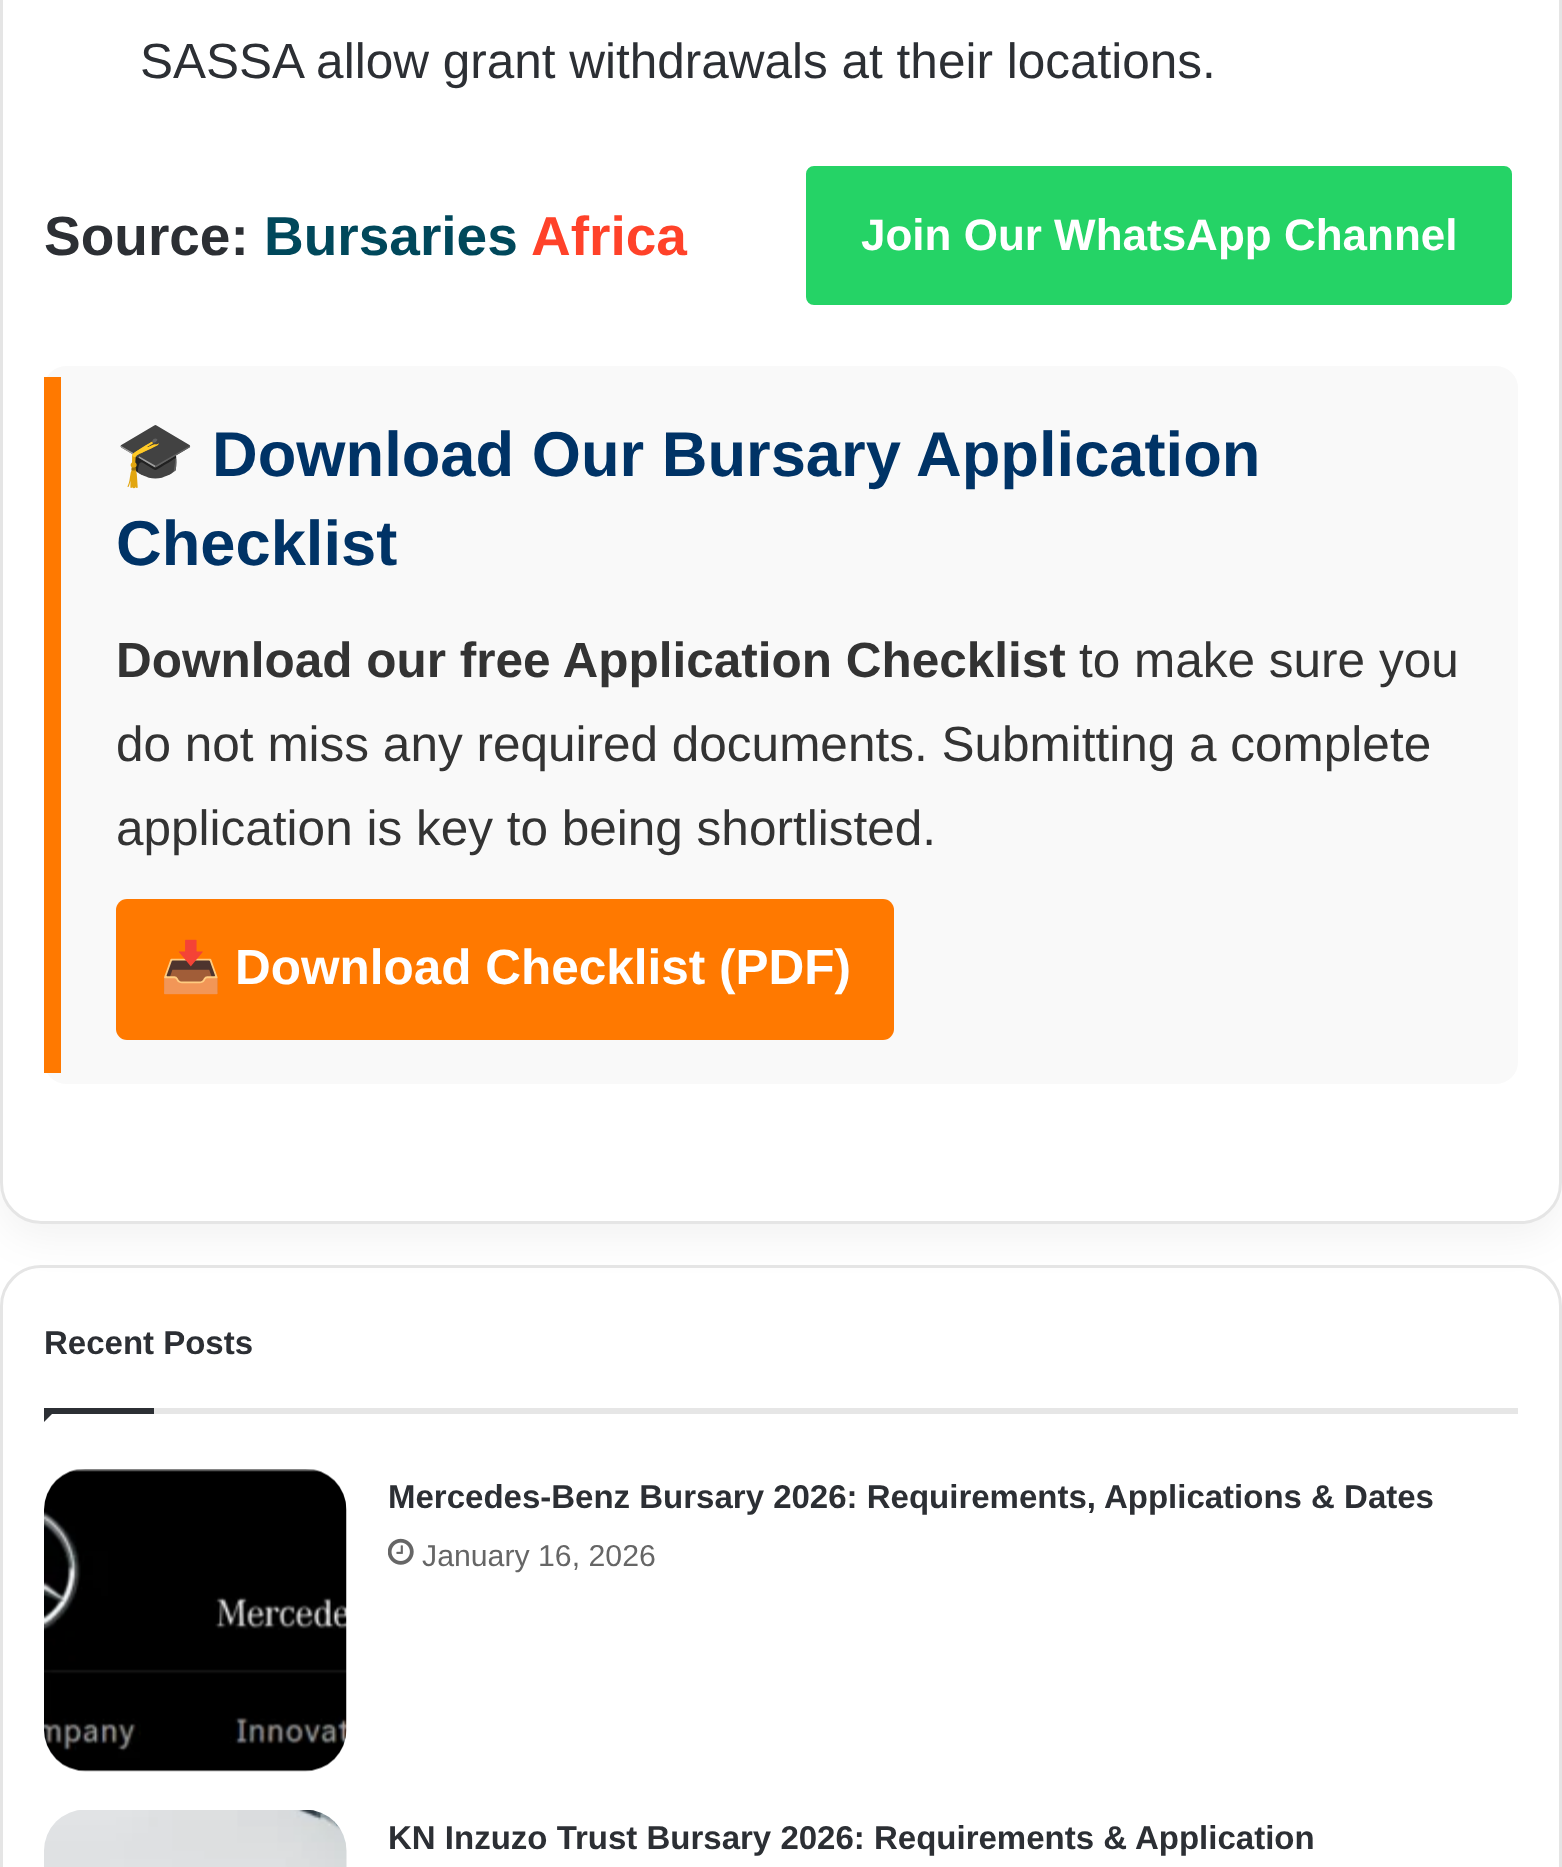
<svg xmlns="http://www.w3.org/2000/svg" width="1562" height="1867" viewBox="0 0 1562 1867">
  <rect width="100%" height="100%" fill="#fff"/>
  <rect y="-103" width="1562" height="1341" rx="41" fill="#0000000d" filter="blur(20.5px)"/>
  <rect y="-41" width="1562" height="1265" rx="41" fill="#fff"/>
  <rect x="1.5" y="-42.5" width="1559" height="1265" rx="39.5" fill="none" stroke="#0000001a" stroke-width="3"/>
  <rect x="803" y="163" width="712" height="145" rx="11" fill="#25d366" stroke="#fff" stroke-width="6"/>
  <rect x="44" y="366" width="1474" height="718" rx="22" fill="#f9f9f9"/>
  <path d="M44 377h17v696H44z" fill="#ff7900"/>
  <rect x="116" y="899" width="778" height="141" rx="11" fill="#ff7900"/>
  <rect x="1.5" y="1266.5" width="1559" height="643" rx="39.5" fill="none" stroke="#e5e5e5" stroke-width="3"/>
  <path d="M154 1408h1364v6H154z" fill="#e6e6e6"/>
  <path d="M44 1408H58L44 1422Z" fill="#2c2f34"/>
  <path d="M44 1408h110v6H44z" fill="#2c2f34"/>
  <image x="44" y="1469" width="303" height="303" href="img/1.png"/>
  <image x="388" y="1538" width="26" height="27" href="img/2.png"/>
  <image x="44" y="1810" width="303" height="57" href="img/3.png"/>
  <text x="140" y="78" font-family="Liberation Sans" font-size="49.5" fill="#2c2f34">SASSA allow grant withdrawals at their locations.</text>
  <text x="44" y="255" font-family="Liberation Sans" font-size="55" font-weight="bold" fill="#2c2f34">Source:</text>
  <text x="264" y="255" font-family="Liberation Sans" font-size="55" font-weight="bold" fill="#00485b">Bursaries</text>
  <text x="531" y="255" font-family="Liberation Sans" font-size="55" font-weight="bold" fill="#ff4229">Africa</text>
  <text x="861" y="250" font-family="Liberation Sans" font-size="44" font-weight="bold" fill="#fff">Join Our WhatsApp Channel</text>
  <text x="116" y="476" font-family="Noto Color Emoji" font-size="63.25" font-weight="bold" fill="#036">🎓</text>
  <g font-family="Liberation Sans" font-size="63.25" font-weight="bold" fill="#036">
    <text x="212" y="476">Download Our Bursary Application</text>
    <text x="116" y="565">Checklist</text>
  </g>
  <text x="116" y="677" font-family="Liberation Sans" font-size="49.5" font-weight="bold" fill="#333">Download our free Application Checklist</text>
  <g font-family="Liberation Sans" font-size="49.5" fill="#333">
    <text x="1079" y="677">to make sure you</text>
    <text x="116" y="761">do not miss any required documents. Submitting a complete</text>
    <text x="116" y="845">application is key to being shortlisted.</text>
  </g>
  <text x="160" y="984" font-family="Noto Color Emoji" font-size="49.5" font-weight="bold" fill="#fff">📥</text>
  <text x="235" y="984" font-family="Liberation Sans" font-size="49.5" font-weight="bold" fill="#fff">Download Checklist (PDF)</text>
  <g font-family="Liberation Sans" font-size="33" font-weight="bold" fill="#2c2f34">
    <text x="44" y="1354">Recent Posts</text>
    <text x="388" y="1508">Mercedes-Benz Bursary 2026: Requirements, Applications &amp; Dates</text>
  </g>
  <text x="422" y="1566" font-family="Liberation Sans" font-size="30.25" fill="#666">January 16, 2026</text>
  <text x="388" y="1849" font-family="Liberation Sans" font-size="33" font-weight="bold" fill="#2c2f34">KN Inzuzo Trust Bursary 2026: Requirements &amp; Application</text>
</svg>
